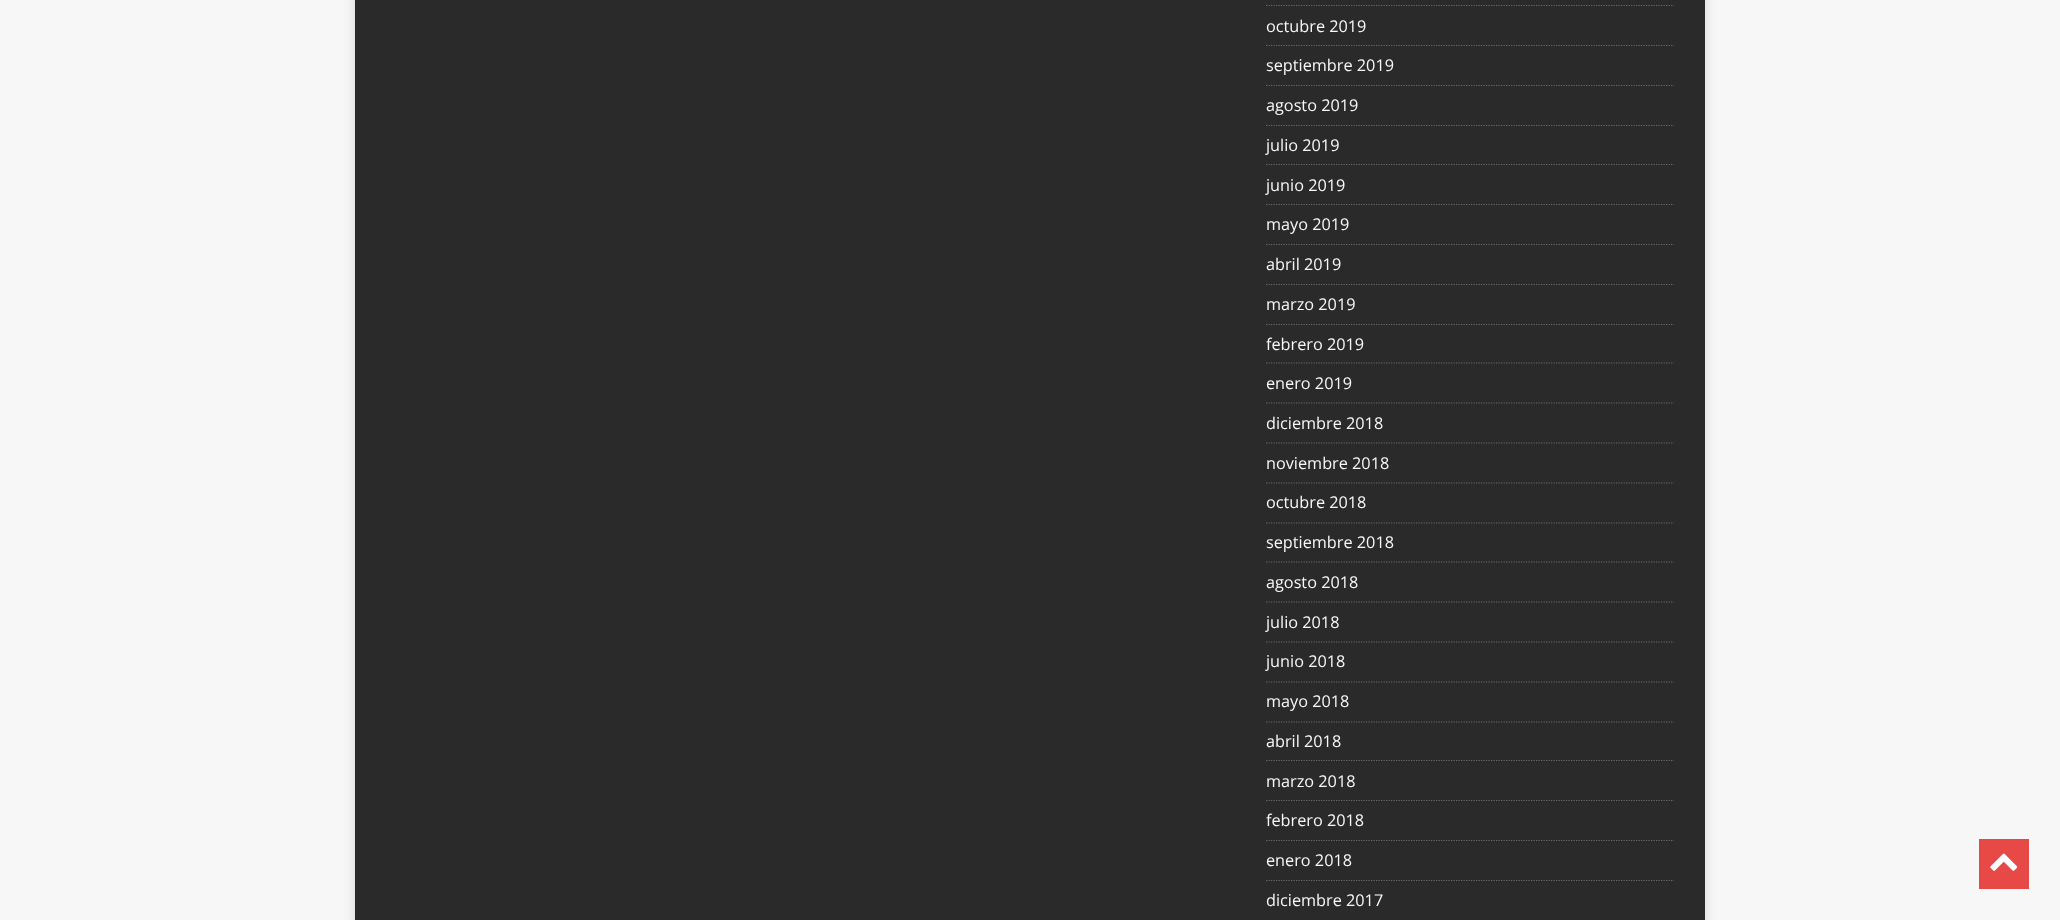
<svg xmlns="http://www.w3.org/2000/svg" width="2060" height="920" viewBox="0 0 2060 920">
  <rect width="100%" height="100%" fill="#f7f7f7"/>
  <path d="M355 -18h1350v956H355z" fill="#3232322b" filter="blur(6px)"/>
  <path d="M355 0h1350v920H355z" fill="#2a2a2a"/>
  <path d="M1266 5.5H1674" fill="none" stroke="#6a6a6a" stroke-width="1.2" stroke-dasharray="1.25 1.25"/>
  <path d="M1266 45.5H1674" fill="none" stroke="#6a6a6a" stroke-width="1.2" stroke-dasharray="1.25 1.25"/>
  <path d="M1266 85.5H1674" fill="none" stroke="#6a6a6a" stroke-width="1.2" stroke-dasharray="1.25 1.25"/>
  <path d="M1266 125.5H1674" fill="none" stroke="#6a6a6a" stroke-width="1.2" stroke-dasharray="1.25 1.25"/>
  <path d="M1266 164.5H1674" fill="none" stroke="#6a6a6a" stroke-width="1.2" stroke-dasharray="1.25 1.25"/>
  <path d="M1266 204.5H1674" fill="none" stroke="#6a6a6a" stroke-width="1.2" stroke-dasharray="1.25 1.25"/>
  <path d="M1266 244.5H1674" fill="none" stroke="#6a6a6a" stroke-width="1.2" stroke-dasharray="1.25 1.25"/>
  <path d="M1266 284.5H1674" fill="none" stroke="#6a6a6a" stroke-width="1.2" stroke-dasharray="1.25 1.25"/>
  <path d="M1266 324.5H1674" fill="none" stroke="#6a6a6a" stroke-width="1.2" stroke-dasharray="1.25 1.25"/>
  <path d="M1266 363H1674" fill="none" stroke="#6a6a6a" stroke-width="1.2" stroke-dasharray="1.25 1.25"/>
  <path d="M1266 403H1674" fill="none" stroke="#6a6a6a" stroke-width="1.2" stroke-dasharray="1.25 1.25"/>
  <path d="M1266 443H1674" fill="none" stroke="#6a6a6a" stroke-width="1.2" stroke-dasharray="1.25 1.25"/>
  <path d="M1266 483H1674" fill="none" stroke="#6a6a6a" stroke-width="1.2" stroke-dasharray="1.25 1.25"/>
  <path d="M1266 523H1674" fill="none" stroke="#6a6a6a" stroke-width="1.2" stroke-dasharray="1.25 1.25"/>
  <path d="M1266 562H1674" fill="none" stroke="#6a6a6a" stroke-width="1.2" stroke-dasharray="1.25 1.25"/>
  <path d="M1266 602H1674" fill="none" stroke="#6a6a6a" stroke-width="1.2" stroke-dasharray="1.25 1.25"/>
  <path d="M1266 642H1674" fill="none" stroke="#6a6a6a" stroke-width="1.2" stroke-dasharray="1.25 1.25"/>
  <path d="M1266 682H1674" fill="none" stroke="#6a6a6a" stroke-width="1.2" stroke-dasharray="1.25 1.25"/>
  <path d="M1266 722H1674" fill="none" stroke="#6a6a6a" stroke-width="1.2" stroke-dasharray="1.25 1.25"/>
  <path d="M1266 760.5H1674" fill="none" stroke="#6a6a6a" stroke-width="1.2" stroke-dasharray="1.25 1.25"/>
  <path d="M1266 800.5H1674" fill="none" stroke="#6a6a6a" stroke-width="1.2" stroke-dasharray="1.25 1.25"/>
  <path d="M1266 840.5H1674" fill="none" stroke="#6a6a6a" stroke-width="1.2" stroke-dasharray="1.25 1.25"/>
  <path d="M1266 880.5H1674" fill="none" stroke="#6a6a6a" stroke-width="1.2" stroke-dasharray="1.25 1.25"/>
  <path d="M1266 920.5H1674" fill="none" stroke="#6a6a6a" stroke-width="1.2" stroke-dasharray="1.25 1.25"/>
  <path d="M1979 839h50v50H1979z" fill="#e64946"/>
  <image x="1990" y="853" width="28" height="18" href="img/1.png"/>
  <g font-family="Open Sans" font-size="16.25" fill="#f7f7f7">
    <text x="1266" y="32">octubre 2019</text>
    <text x="1266" y="71">septiembre 2019</text>
    <text x="1266" y="111">agosto 2019</text>
    <text x="1266" y="151">julio 2019</text>
    <text x="1266" y="191">junio 2019</text>
    <text x="1266" y="230">mayo 2019</text>
    <text x="1266" y="270">abril 2019</text>
    <text x="1266" y="310">marzo 2019</text>
    <text x="1266" y="350">febrero 2019</text>
    <text x="1266" y="389">enero 2019</text>
    <text x="1266" y="429">diciembre 2018</text>
    <text x="1266" y="469">noviembre 2018</text>
    <text x="1266" y="508">octubre 2018</text>
    <text x="1266" y="548">septiembre 2018</text>
    <text x="1266" y="588">agosto 2018</text>
    <text x="1266" y="628">julio 2018</text>
    <text x="1266" y="667">junio 2018</text>
    <text x="1266" y="707">mayo 2018</text>
    <text x="1266" y="747">abril 2018</text>
    <text x="1266" y="787">marzo 2018</text>
    <text x="1266" y="826">febrero 2018</text>
    <text x="1266" y="866">enero 2018</text>
    <text x="1266" y="906">diciembre 2017</text>
  </g>
</svg>
